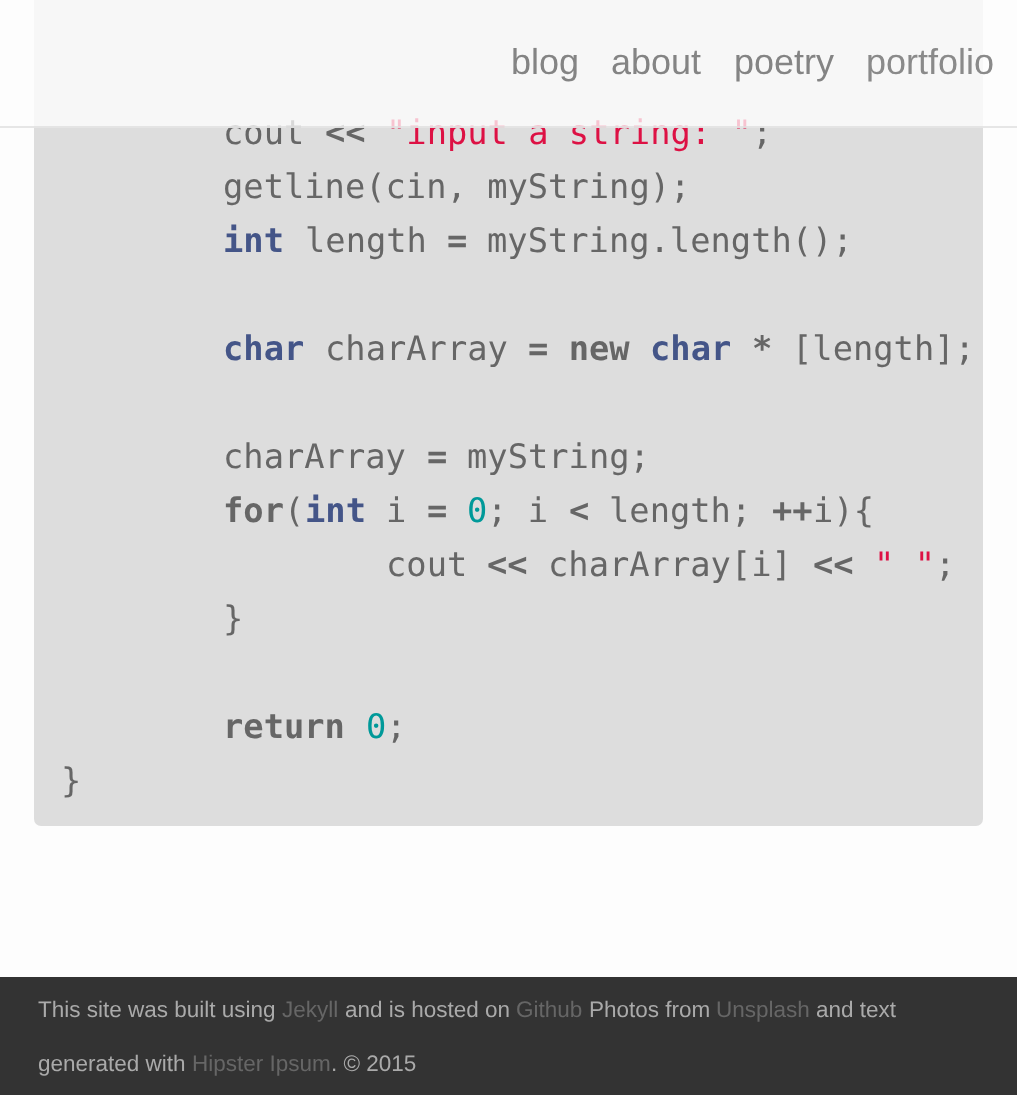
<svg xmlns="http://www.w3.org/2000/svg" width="1017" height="1095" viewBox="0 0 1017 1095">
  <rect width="100%" height="100%" fill="#fdfdfd"/>
  <rect x="34" y="-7" width="949" height="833" rx="7" fill="#ddd"/>
  <path d="M0 977h1017v118H0z" fill="#333"/>
  <text x="223" y="144" font-family="DejaVu Sans Mono" font-size="33.75" fill="#666">cout</text>
  <text x="325" y="144" font-family="DejaVu Sans Mono" font-size="33.75" font-weight="bold" fill="#666">&lt;&lt;</text>
  <text x="386" y="144" font-family="DejaVu Sans Mono" font-size="33.75" fill="#d14">"input a string: "</text>
  <text x="752" y="144" font-family="DejaVu Sans Mono" font-size="33.75" fill="#666">;</text>
  <path d="M34 0h949v128H34z" fill="#ffffffbf"/>
  <text x="866" y="74" font-family="Liberation Sans" font-size="36" fill="#8a8a8a">portfolio</text>
  <g font-family="Liberation Sans" font-size="36" fill="#848484">
    <text x="734" y="74">poetry</text>
    <text x="611" y="74">about</text>
    <text x="511" y="74">blog</text>
  </g>
  <path d="M0 126h1017v2H0z" fill="#ddddddbf"/>
  <text x="223" y="198" font-family="DejaVu Sans Mono" font-size="33.75" fill="#666">getline(cin, myString);</text>
  <text x="223" y="252" font-family="DejaVu Sans Mono" font-size="33.75" font-weight="bold" fill="#458">int</text>
  <text x="305" y="252" font-family="DejaVu Sans Mono" font-size="33.75" fill="#666">length</text>
  <text x="447" y="252" font-family="DejaVu Sans Mono" font-size="33.75" font-weight="bold" fill="#666">=</text>
  <text x="487" y="252" font-family="DejaVu Sans Mono" font-size="33.75" fill="#666">myString.length();</text>
  <text x="223" y="360" font-family="DejaVu Sans Mono" font-size="33.75" font-weight="bold" fill="#458">char</text>
  <text x="325" y="360" font-family="DejaVu Sans Mono" font-size="33.75" fill="#666">charArray</text>
  <text x="528" y="360" font-family="DejaVu Sans Mono" font-size="33.75" font-weight="bold" fill="#666">= new</text>
  <text x="650" y="360" font-family="DejaVu Sans Mono" font-size="33.75" font-weight="bold" fill="#458">char</text>
  <text x="752" y="360" font-family="DejaVu Sans Mono" font-size="33.75" font-weight="bold" fill="#666">*</text>
  <g font-family="DejaVu Sans Mono" font-size="33.75" fill="#666">
    <text x="792" y="360">[length];</text>
    <text x="223" y="468">charArray</text>
  </g>
  <text x="427" y="468" font-family="DejaVu Sans Mono" font-size="33.75" font-weight="bold" fill="#666">=</text>
  <text x="467" y="468" font-family="DejaVu Sans Mono" font-size="33.75" fill="#666">myString;</text>
  <text x="223" y="522" font-family="DejaVu Sans Mono" font-size="33.75" font-weight="bold" fill="#666">for</text>
  <text x="284" y="522" font-family="DejaVu Sans Mono" font-size="33.75" fill="#666">(</text>
  <text x="305" y="522" font-family="DejaVu Sans Mono" font-size="33.75" font-weight="bold" fill="#458">int</text>
  <text x="386" y="522" font-family="DejaVu Sans Mono" font-size="33.75" fill="#666">i</text>
  <text x="427" y="522" font-family="DejaVu Sans Mono" font-size="33.75" font-weight="bold" fill="#666">=</text>
  <text x="467" y="522" font-family="DejaVu Sans Mono" font-size="33.75" fill="#099">0</text>
  <text x="487" y="522" font-family="DejaVu Sans Mono" font-size="33.75" fill="#666">; i</text>
  <text x="569" y="522" font-family="DejaVu Sans Mono" font-size="33.75" font-weight="bold" fill="#666">&lt;</text>
  <text x="609" y="522" font-family="DejaVu Sans Mono" font-size="33.75" fill="#666">length;</text>
  <text x="772" y="522" font-family="DejaVu Sans Mono" font-size="33.75" font-weight="bold" fill="#666">++</text>
  <g font-family="DejaVu Sans Mono" font-size="33.75" fill="#666">
    <text x="813" y="522">i){</text>
    <text x="386" y="576">cout</text>
  </g>
  <text x="487" y="576" font-family="DejaVu Sans Mono" font-size="33.75" font-weight="bold" fill="#666">&lt;&lt;</text>
  <text x="548" y="576" font-family="DejaVu Sans Mono" font-size="33.75" fill="#666">charArray[i]</text>
  <text x="813" y="576" font-family="DejaVu Sans Mono" font-size="33.75" font-weight="bold" fill="#666">&lt;&lt;</text>
  <text x="874" y="576" font-family="DejaVu Sans Mono" font-size="33.75" fill="#d14">" "</text>
  <g font-family="DejaVu Sans Mono" font-size="33.75" fill="#666">
    <text x="935" y="576">;</text>
    <text x="223" y="630">}</text>
  </g>
  <text x="223" y="738" font-family="DejaVu Sans Mono" font-size="33.75" font-weight="bold" fill="#666">return</text>
  <text x="366" y="738" font-family="DejaVu Sans Mono" font-size="33.75" fill="#099">0</text>
  <g font-family="DejaVu Sans Mono" font-size="33.75" fill="#666">
    <text x="386" y="738">;</text>
    <text x="61" y="792">}</text>
  </g>
  <text x="38" y="1017" font-family="Liberation Sans" font-size="22.5" fill="#aaa">This site was built using</text>
  <text x="282" y="1017" font-family="Liberation Sans" font-size="22.5" fill="#666">Jekyll</text>
  <text x="345" y="1017" font-family="Liberation Sans" font-size="22.5" fill="#aaa">and is hosted on</text>
  <text x="516" y="1017" font-family="Liberation Sans" font-size="22.5" fill="#666">Github</text>
  <text x="589" y="1017" font-family="Liberation Sans" font-size="22.5" fill="#aaa">Photos from</text>
  <text x="716" y="1017" font-family="Liberation Sans" font-size="22.5" fill="#666">Unsplash</text>
  <g font-family="Liberation Sans" font-size="22.5" fill="#aaa">
    <text x="816" y="1017">and text</text>
    <text x="38" y="1071">generated with</text>
  </g>
  <text x="192" y="1071" font-family="Liberation Sans" font-size="22.5" fill="#666">Hipster Ipsum</text>
  <text x="331" y="1071" font-family="Liberation Sans" font-size="22.5" fill="#aaa">. © 2015</text>
</svg>
